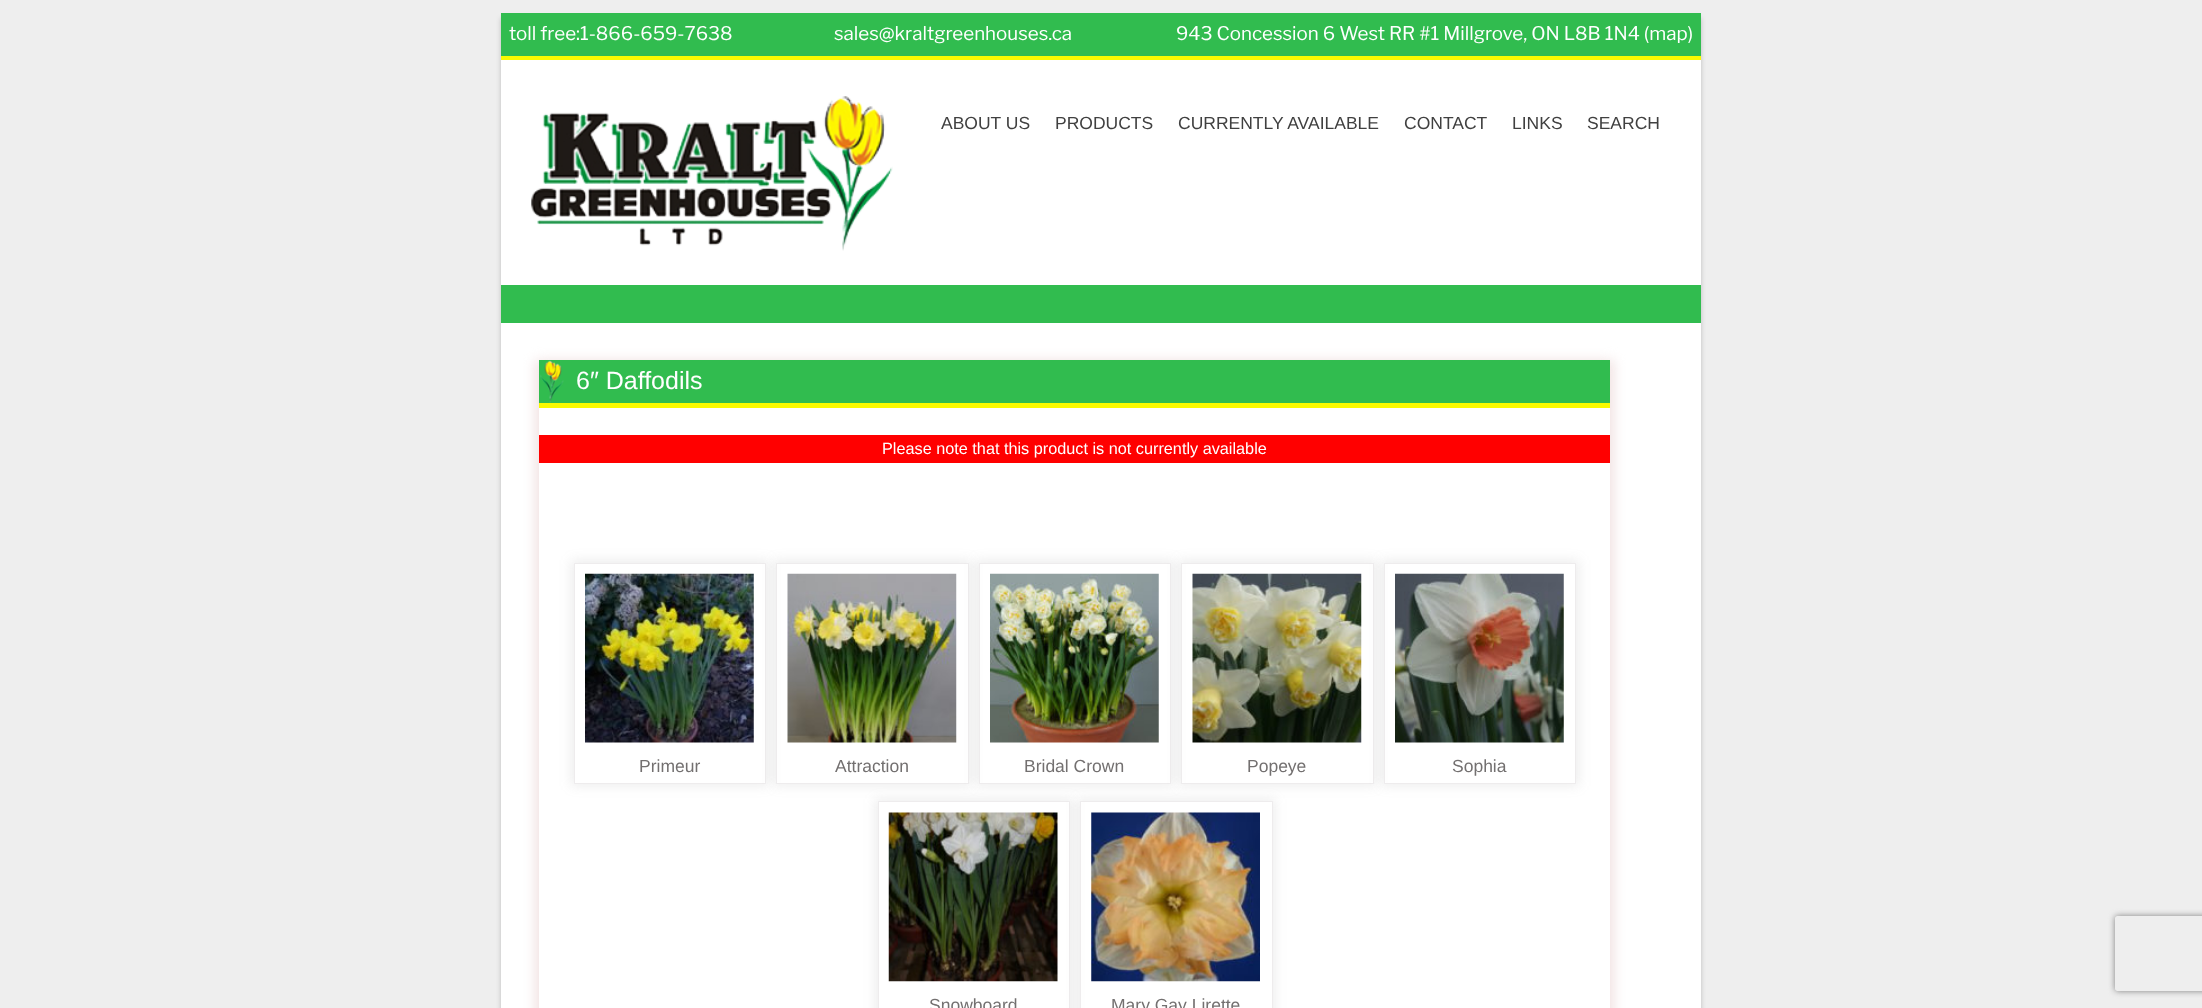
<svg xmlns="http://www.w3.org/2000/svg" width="2202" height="1008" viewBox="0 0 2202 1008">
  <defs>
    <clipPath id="clip1"><path d="M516 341H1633V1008H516ZM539 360H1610V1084H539Z" clip-rule="evenodd"/></clipPath>
    <clipPath id="clip2"><path d="M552 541H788V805H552ZM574 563H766V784H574Z" clip-rule="evenodd"/></clipPath>
    <clipPath id="clip3"><path d="M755 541H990V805H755ZM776 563H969V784H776Z" clip-rule="evenodd"/></clipPath>
    <clipPath id="clip4"><path d="M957 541H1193V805H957ZM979 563H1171V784H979Z" clip-rule="evenodd"/></clipPath>
    <clipPath id="clip5"><path d="M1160 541H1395V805H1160ZM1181 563H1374V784H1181Z" clip-rule="evenodd"/></clipPath>
    <clipPath id="clip6"><path d="M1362 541H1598V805H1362ZM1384 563H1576V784H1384Z" clip-rule="evenodd"/></clipPath>
    <clipPath id="clip7"><path d="M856 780H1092V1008H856ZM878 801H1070V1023H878Z" clip-rule="evenodd"/></clipPath>
    <clipPath id="clip8"><path d="M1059 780H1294V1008H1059ZM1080 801H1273V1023H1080Z" clip-rule="evenodd"/></clipPath>
    <clipPath id="clip9"><path d="M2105 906H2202V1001H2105ZM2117.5 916H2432.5C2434 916 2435 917 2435 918.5V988.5C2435 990 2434 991 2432.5 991H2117.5C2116 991 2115 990 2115 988.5V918.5C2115 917 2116 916 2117.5 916Z" clip-rule="evenodd"/></clipPath>
  </defs>
  <rect width="100%" height="100%" fill="#eee"/>
  <path d="M501 18h1200v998H501z" fill="#00000033" filter="blur(2.5px)"/>
  <path d="M501 60h1200v948H501z" fill="#fff"/>
  <path d="M501 13h1200v43H501z" fill="#31bc4f"/>
  <path d="M501 56h1200v4H501z" fill="#f9fa00"/>
  <image x="531" y="96" width="362" height="155" href="img/1.png"/>
  <path d="M501 285h1200v38H501z" fill="#31bc4f"/>
  <g clip-path="url(#clip1)">
    <path d="M535 360h1079v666H535z" fill="#f1e2e2" filter="blur(6px)"/>
  </g>
  <path d="M539 360h1071v43H539z" fill="#31bc4f"/>
  <image x="540" y="360" width="24" height="43" href="img/2.png"/>
  <path d="M539 403h1071v5H539z" fill="#f9fa00"/>
  <path d="M539 435h1071v28H539z" fill="#f00"/>
  <g clip-path="url(#clip2)">
    <path d="M571 560h198v226H571z" fill="#80808024" filter="blur(6px)"/>
  </g>
  <path d="M574.5 563.5h191v220H574.5z" fill="none" stroke="#dedadb80"/>
  <image x="585" y="573" width="169" height="170" href="img/3.png"/>
  <g clip-path="url(#clip3)">
    <path d="M774 560h197v226H774z" fill="#80808024" filter="blur(6px)"/>
  </g>
  <path d="M776.5 563.5h192v220H776.5z" fill="none" stroke="#dedadb80"/>
  <image x="787" y="573" width="170" height="170" href="img/4.png"/>
  <g clip-path="url(#clip4)">
    <path d="M976 560h198v226H976z" fill="#80808024" filter="blur(6px)"/>
  </g>
  <path d="M979.5 563.5h191v220H979.5z" fill="none" stroke="#dedadb80"/>
  <image x="990" y="573" width="169" height="170" href="img/5.png"/>
  <g clip-path="url(#clip5)">
    <path d="M1179 560h197v226H1179z" fill="#80808024" filter="blur(6px)"/>
  </g>
  <path d="M1181.5 563.5h192v220H1181.5z" fill="none" stroke="#dedadb80"/>
  <image x="1192" y="573" width="170" height="170" href="img/6.png"/>
  <g clip-path="url(#clip6)">
    <path d="M1381 560h198v226H1381z" fill="#80808024" filter="blur(6px)"/>
  </g>
  <path d="M1384.5 563.5h191v220H1384.5z" fill="none" stroke="#dedadb80"/>
  <image x="1395" y="573" width="169" height="170" href="img/7.png"/>
  <g clip-path="url(#clip7)">
    <path d="M875 799h198v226H875z" fill="#80808024" filter="blur(6px)"/>
  </g>
  <path d="M878.5 801.5h191v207H878.5z" fill="none" stroke="#dedadb80"/>
  <image x="888" y="812" width="170" height="170" href="img/8.png"/>
  <g clip-path="url(#clip8)">
    <path d="M1078 799h197v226H1078z" fill="#80808024" filter="blur(6px)"/>
  </g>
  <path d="M1080.5 801.5h192v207H1080.5z" fill="none" stroke="#dedadb80"/>
  <image x="1091" y="812" width="169" height="170" href="img/9.png"/>
  <g clip-path="url(#clip9)">
    <rect x="2115" y="916" width="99" height="75" rx="2.5" fill="#808080" filter="blur(3px)"/>
  </g>
  <g font-family="Libre Franklin" font-size="18.75" fill="#fff">
    <text x="509" y="40">toll free:1-866-659-7638</text>
    <text x="834" y="40">sales@kraltgreenhouses.ca</text>
    <text x="1176" y="40">943 Concession 6 West RR #1 Millgrove, ON L8B 1N4 (map)</text>
  </g>
  <g font-family="Liberation Sans" font-size="17.5" fill="#404040">
    <text x="941" y="129">ABOUT US</text>
    <text x="1055" y="129">PRODUCTS</text>
    <text x="1178" y="129">CURRENTLY AVAILABLE</text>
    <text x="1404" y="129">CONTACT</text>
    <text x="1512" y="129">LINKS</text>
    <text x="1587" y="129">SEARCH</text>
  </g>
  <text x="576" y="389" font-family="Liberation Sans" font-size="25" fill="#fff">6″ Daffodils</text>
  <text x="882" y="454" font-family="Liberation Sans" font-size="16.25" fill="#fff">Please note that this product is not currently available</text>
  <g font-family="Liberation Sans" font-size="17.5" fill="#737070">
    <text x="639" y="772">Primeur</text>
    <text x="835" y="772">Attraction</text>
    <text x="1024" y="772">Bridal Crown</text>
    <text x="1247" y="772">Popeye</text>
    <text x="1452" y="772">Sophia</text>
    <text x="929" y="1011">Snowboard</text>
    <text x="1111" y="1011">Mary Gay Lirette</text>
  </g>
</svg>
